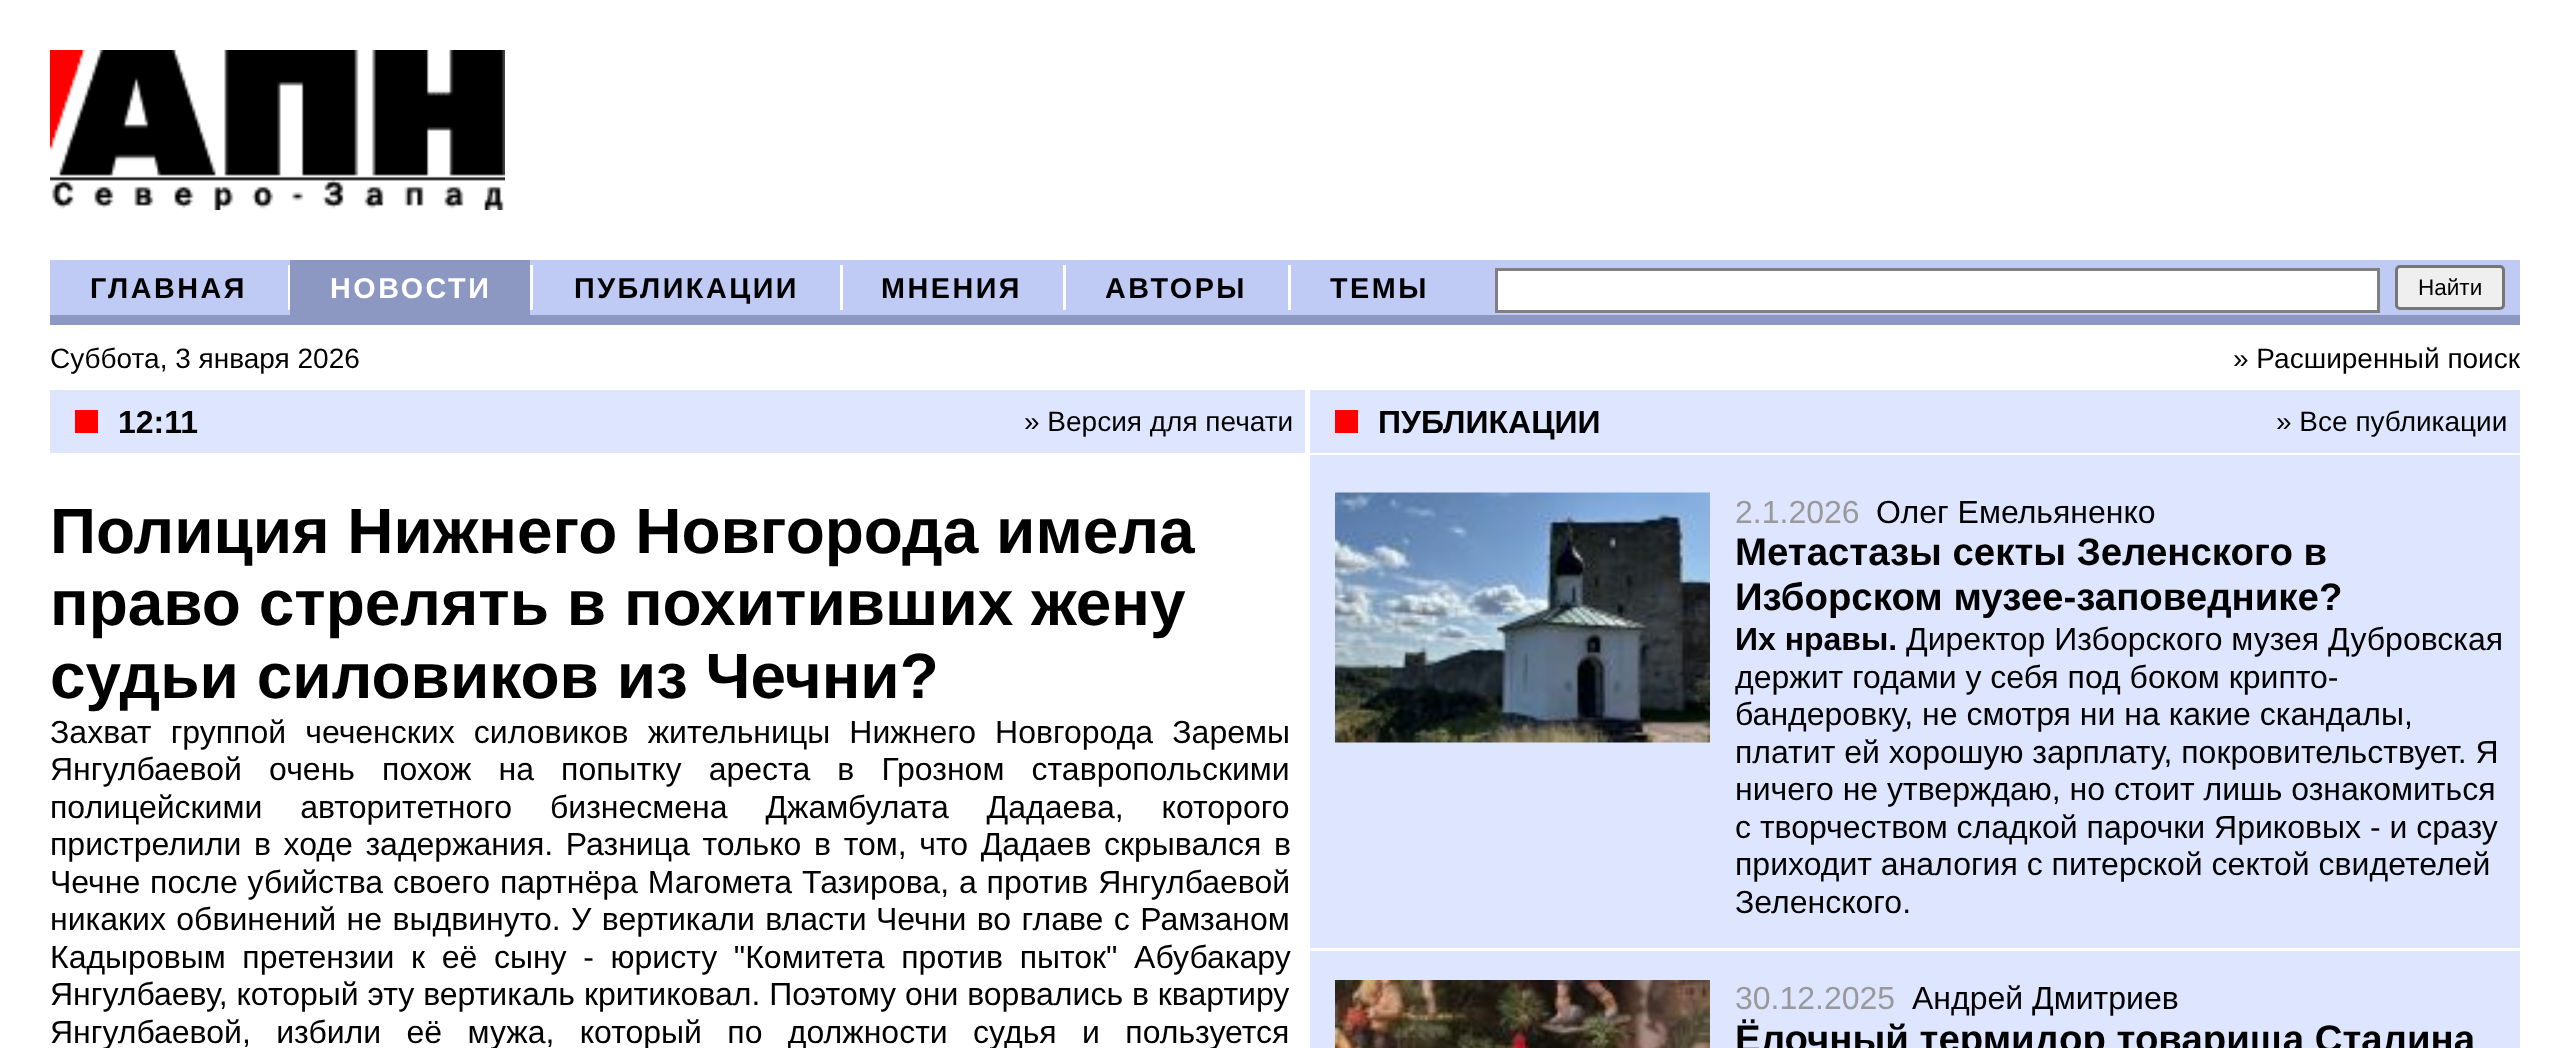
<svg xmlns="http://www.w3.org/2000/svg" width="2570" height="1048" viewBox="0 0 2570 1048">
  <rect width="100%" height="100%" fill="#fff"/>
  <image x="50" y="50" width="455" height="160" href="img/1.png"/>
  <path d="M50 260h2470v55H50z" fill="#c0cbf5"/>
  <path d="M50 315h2470v10H50z" fill="#8d98c2"/>
  <path d="M288 260h2v55H288z" fill="#fff"/>
  <path d="M288 260h2v5H288z" fill="#c0cbf5"/>
  <path d="M288 310h2v5H288z" fill="#c0cbf5"/>
  <path d="M290 260h240v55H290z" fill="#8d98c2"/>
  <path d="M530 260h3v55H530z" fill="#fff"/>
  <path d="M530 260h3v5H530z" fill="#c0cbf5"/>
  <path d="M530 310h3v5H530z" fill="#c0cbf5"/>
  <path d="M840 260h3v55H840z" fill="#fff"/>
  <path d="M840 260h3v5H840z" fill="#c0cbf5"/>
  <path d="M840 310h3v5H840z" fill="#c0cbf5"/>
  <path d="M1063 260h3v55H1063z" fill="#fff"/>
  <path d="M1063 260h3v5H1063z" fill="#c0cbf5"/>
  <path d="M1063 310h3v5H1063z" fill="#c0cbf5"/>
  <path d="M1288 260h3v55H1288z" fill="#fff"/>
  <path d="M1288 260h3v5H1288z" fill="#c0cbf5"/>
  <path d="M1288 310h3v5H1288z" fill="#c0cbf5"/>
  <path d="M1496.5 269.5h882v42H1496.5z" fill="#fff" stroke="#808080" stroke-width="3"/>
  <rect x="2396.5" y="266.5" width="107" height="42" rx="3.5" fill="#efefef" stroke="#767676" stroke-width="3"/>
  <path d="M50 390h1255v63H50z" fill="#dee5ff"/>
  <path d="M75 410h23v23H75z" fill="#fe0000"/>
  <path d="M1310 390h1210v63H1310z" fill="#dee5ff"/>
  <path d="M1335 410h23v23H1335z" fill="#fe0000"/>
  <path d="M1310 455h1210v593H1310z" fill="#dee5ff"/>
  <image x="1335" y="492" width="375" height="251" href="img/2.png"/>
  <path d="M1310 948h1210v3H1310z" fill="#fff"/>
  <image x="1335" y="980" width="375" height="68" href="img/3.png"/>
  <text x="90" y="298" font-family="Liberation Sans" font-size="28.75" font-weight="bold" letter-spacing="2.5" fill="#000">ГЛАВНАЯ</text>
  <text x="330" y="298" font-family="Liberation Sans" font-size="28.75" font-weight="bold" letter-spacing="2.5" fill="#fff">НОВОСТИ</text>
  <g font-family="Liberation Sans" font-size="28.75" font-weight="bold" letter-spacing="2.5" fill="#000">
    <text x="574" y="298">ПУБЛИКАЦИИ</text>
    <text x="881" y="298">МНЕНИЯ</text>
    <text x="1105" y="298">АВТОРЫ</text>
    <text x="1330" y="298">ТЕМЫ</text>
  </g>
  <text x="2418" y="295" font-family="Liberation Sans" font-size="22.5" fill="#000">Найти</text>
  <g font-family="Liberation Sans" font-size="28" fill="#000">
    <text x="50" y="368">Суббота, 3 января 2026</text>
    <text x="2233" y="368">» Расширенный поиск</text>
  </g>
  <text x="118" y="433" font-family="Liberation Sans" font-size="32" font-weight="bold" fill="#000">12:11</text>
  <text x="1024" y="431" font-family="Liberation Sans" font-size="28" fill="#000">» Версия для печати</text>
  <g font-family="Liberation Sans" font-size="64" font-weight="bold" fill="#000">
    <text x="50" y="553">Полиция Нижнего Новгорода имела</text>
    <text x="50" y="625">право стрелять в похитивших жену</text>
    <text x="50" y="698">судьи силовиков из Чечни?</text>
  </g>
  <g font-family="Liberation Sans" font-size="32" fill="#000">
    <text x="50" y="743" word-spacing="10.25">Захват группой чеченских силовиков жительницы Нижнего Новгорода Заремы</text>
    <text x="50" y="780" word-spacing="18.25">Янгулбаевой очень похож на попытку ареста в Грозном ставропольскими</text>
    <text x="50" y="818" word-spacing="29">полицейскими авторитетного бизнесмена Джамбулата Дадаева, которого</text>
    <text x="50" y="855" word-spacing="3.75">пристрелили в ходе задержания. Разница только в том, что Дадаев скрывался в</text>
    <text x="50" y="893" word-spacing="1">Чечне после убийства своего партнёра Магомета Тазирова, а против Янгулбаевой</text>
    <text x="50" y="930" word-spacing="1.5">никаких обвинений не выдвинуто. У вертикали власти</text>
    <text x="876" y="930" word-spacing="1.5">Чечни во главе с Рамзаном</text>
    <text x="50" y="968" word-spacing="7.75">Кадыровым претензии к её сыну - юристу "Комитета против пыток" Абубакару</text>
    <text x="50" y="1005">Янгулбаеву, который эту вертикаль критиковал. Поэтому они ворвались в квартиру</text>
    <text x="50" y="1043" word-spacing="16.5">Янгулбаевой, избили её мужа, который по должности судья и пользуется</text>
  </g>
  <text x="1378" y="433" font-family="Liberation Sans" font-size="32" font-weight="bold" fill="#000">ПУБЛИКАЦИИ</text>
  <text x="2276" y="431" font-family="Liberation Sans" font-size="28" fill="#000">» Все публикации</text>
  <text x="1735" y="523" font-family="Liberation Sans" font-size="32" fill="#999">2.1.2026</text>
  <text x="1876" y="523" font-family="Liberation Sans" font-size="32" fill="#000">Олег Емельяненко</text>
  <g font-family="Liberation Sans" font-size="38.4" font-weight="bold" fill="#000">
    <text x="1735" y="565">Метастазы секты Зеленского в</text>
    <text x="1735" y="610">Изборском музее-заповеднике?</text>
  </g>
  <text x="1735" y="650" font-family="Liberation Sans" font-size="32" font-weight="bold" fill="#000">Их нравы.</text>
  <g font-family="Liberation Sans" font-size="32" fill="#000">
    <text x="1906" y="650">Директор Изборского музея Дубровская</text>
    <text x="1735" y="688">держит годами у себя под боком крипто-</text>
    <text x="1735" y="725">бандеровку, не смотря ни на какие скандалы,</text>
    <text x="1735" y="763">платит ей хорошую зарплату, покровительствует. Я</text>
    <text x="1735" y="800">ничего не утверждаю, но стоит лишь ознакомиться</text>
    <text x="1735" y="838">с творчеством сладкой парочки Яриковых - и сразу</text>
    <text x="1735" y="875">приходит аналогия с питерской сектой свидетелей</text>
    <text x="1735" y="913">Зеленского.</text>
  </g>
  <text x="1735" y="1009" font-family="Liberation Sans" font-size="32" fill="#999">30.12.2025</text>
  <text x="1912" y="1009" font-family="Liberation Sans" font-size="32" fill="#000">Андрей Дмитриев</text>
  <text x="1735" y="1052" font-family="Liberation Sans" font-size="38.4" font-weight="bold" fill="#000">Ёлочный термидор товарища Сталина</text>
</svg>
